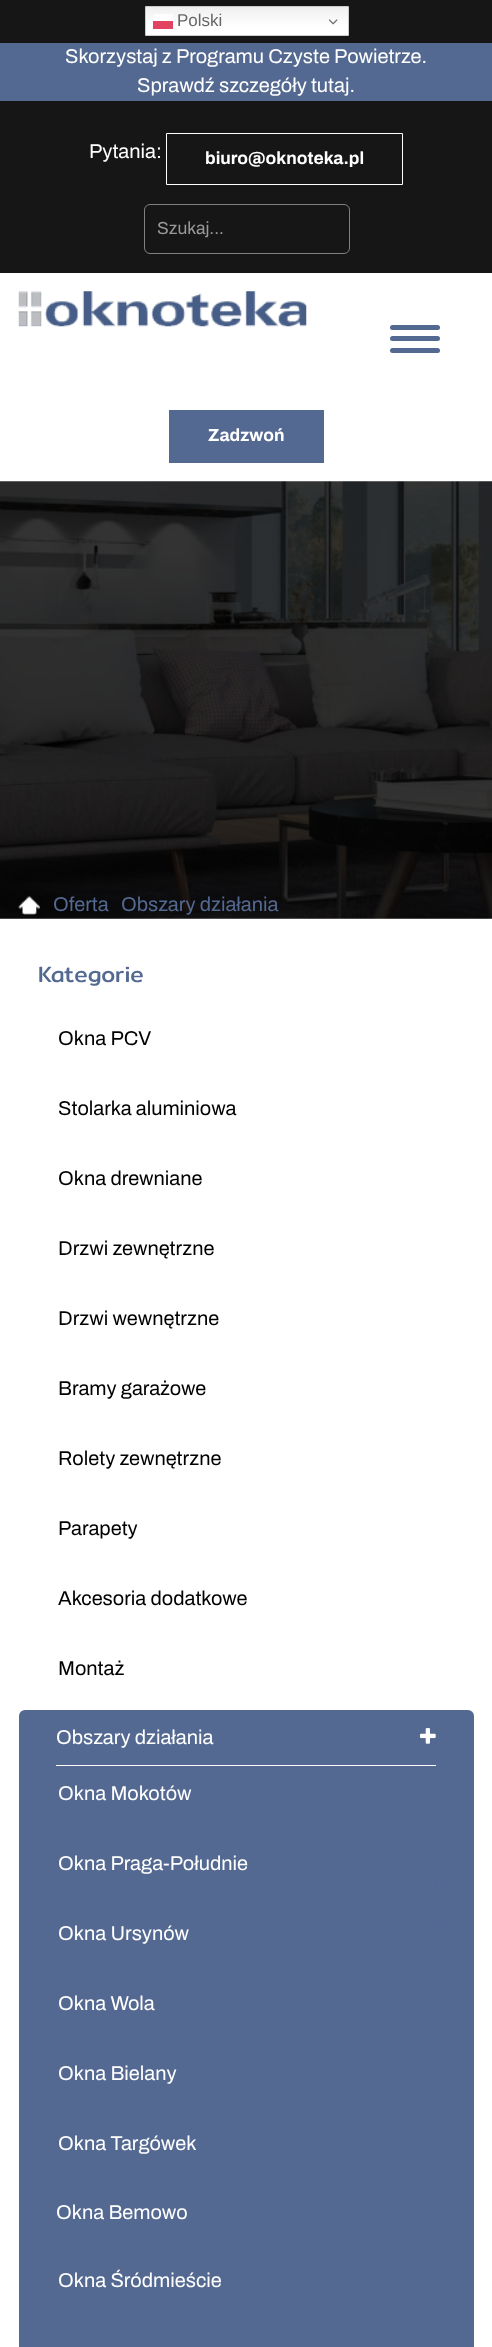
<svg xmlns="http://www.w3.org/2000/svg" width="492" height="2347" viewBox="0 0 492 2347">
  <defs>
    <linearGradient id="g1" gradientUnits="userSpaceOnUse" x1="247" y1="6.2" x2="247" y2="36"><stop offset="0" stop-color="#efefef"/><stop offset="0.7" stop-color="#fff"/></linearGradient>
    <linearGradient id="g2" gradientUnits="userSpaceOnUse" x1="247" y1="6.2" x2="247" y2="36"><stop offset="0" stop-color="#fcfcfc"/><stop offset="0.7" stop-color="#fff"/></linearGradient>
  </defs>
  <rect width="100%" height="100%" fill="#fff"/>
  <path d="M0 0h492v43H0z" fill="#161616"/>
  <path d="M146 7h202v28H146z" fill="url(#g1)"/>
  <path d="M153 14h20v7H153z" fill="url(#g2)"/>
  <path d="M145.5 6.5h203v29H145.5z" fill="none" stroke="#ccc"/>
  <path d="M153 21h20v8H153z" fill="#e34363"/>
  <image x="329" y="19" width="9" height="6" href="img/1.png"/>
  <path d="M0 43h492v58H0z" fill="#546991"/>
  <path d="M0 101h492v172H0z" fill="#161616"/>
  <path d="M166.5 133.5h236v51H166.5z" fill="none" stroke="#fff"/>
  <rect x="144.5" y="204.5" width="205" height="49" rx="5.5" fill="none" stroke="#808080"/>
  <image x="18" y="291" width="289" height="36" href="img/2.png"/>
  <rect x="390" y="325" width="50" height="5" rx="2.5" fill="#546991"/>
  <rect x="390" y="336" width="50" height="5" rx="2.5" fill="#546991"/>
  <rect x="390" y="348" width="50" height="5" rx="2.5" fill="#546991"/>
  <path d="M169 410h155v53H169z" fill="#546991"/>
  <image x="0" y="481" width="492" height="438" href="img/3.png"/>
  <image x="18" y="896" width="22" height="19" href="img/4.png"/>
  <rect x="19" y="1710" width="455" height="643" rx="6" fill="#546991"/>
  <path d="M56 1765h380v1H56z" fill="#fff"/>
  <image x="420" y="1728" width="16" height="16" href="img/5.png"/>
  <image x="402" y="1883" width="45" height="55" href="img/6.png"/>
  <text x="177" y="26" font-family="Liberation Sans" font-size="17" fill="#666">Polski</text>
  <g font-family="Archivo" font-size="20" fill="#fff">
    <text x="65" y="63">Skorzystaj z Programu Czyste Powietrze.</text>
    <text x="137" y="92">Sprawdź szczegóły tutaj.</text>
    <text x="89" y="158">Pytania:</text>
  </g>
  <text x="205" y="164" font-family="Archivo" font-size="17.5" font-weight="bold" fill="#fff">biuro@oknoteka.pl</text>
  <text x="157" y="234" font-family="Archivo" font-size="17.5" fill="#999">Szukaj...</text>
  <text x="208" y="441" font-family="Archivo" font-size="17.5" font-weight="bold" fill="#fff">Zadzwoń</text>
  <g font-family="Archivo" font-size="20" fill="#546991">
    <text x="53" y="911">Oferta</text>
    <text x="121" y="911">Obszary działania</text>
  </g>
  <text x="38" y="982" font-family="Mitr" font-size="22.5" fill="#546991">Kategorie</text>
  <g font-family="Archivo" font-size="20" fill="#000">
    <text x="58" y="1045">Okna PCV</text>
    <text x="58" y="1115">Stolarka aluminiowa</text>
    <text x="58" y="1185">Okna drewniane</text>
    <text x="58" y="1255">Drzwi zewnętrzne</text>
    <text x="58" y="1325">Drzwi wewnętrzne</text>
    <text x="58" y="1395">Bramy garażowe</text>
    <text x="58" y="1465">Rolety zewnętrzne</text>
    <text x="58" y="1535">Parapety</text>
    <text x="58" y="1605">Akcesoria dodatkowe</text>
    <text x="58" y="1675">Montaż</text>
  </g>
  <g font-family="Archivo" font-size="20" fill="#fff">
    <text x="56" y="1744">Obszary działania</text>
    <text x="58" y="1800">Okna Mokotów</text>
    <text x="58" y="1870">Okna Praga-Południe</text>
    <text x="58" y="1940">Okna Ursynów</text>
    <text x="58" y="2010">Okna Wola</text>
    <text x="58" y="2080">Okna Bielany</text>
    <text x="58" y="2150">Okna Targówek</text>
    <text x="56" y="2219">Okna Bemowo</text>
    <text x="58" y="2287">Okna Śródmieście</text>
  </g>
</svg>
